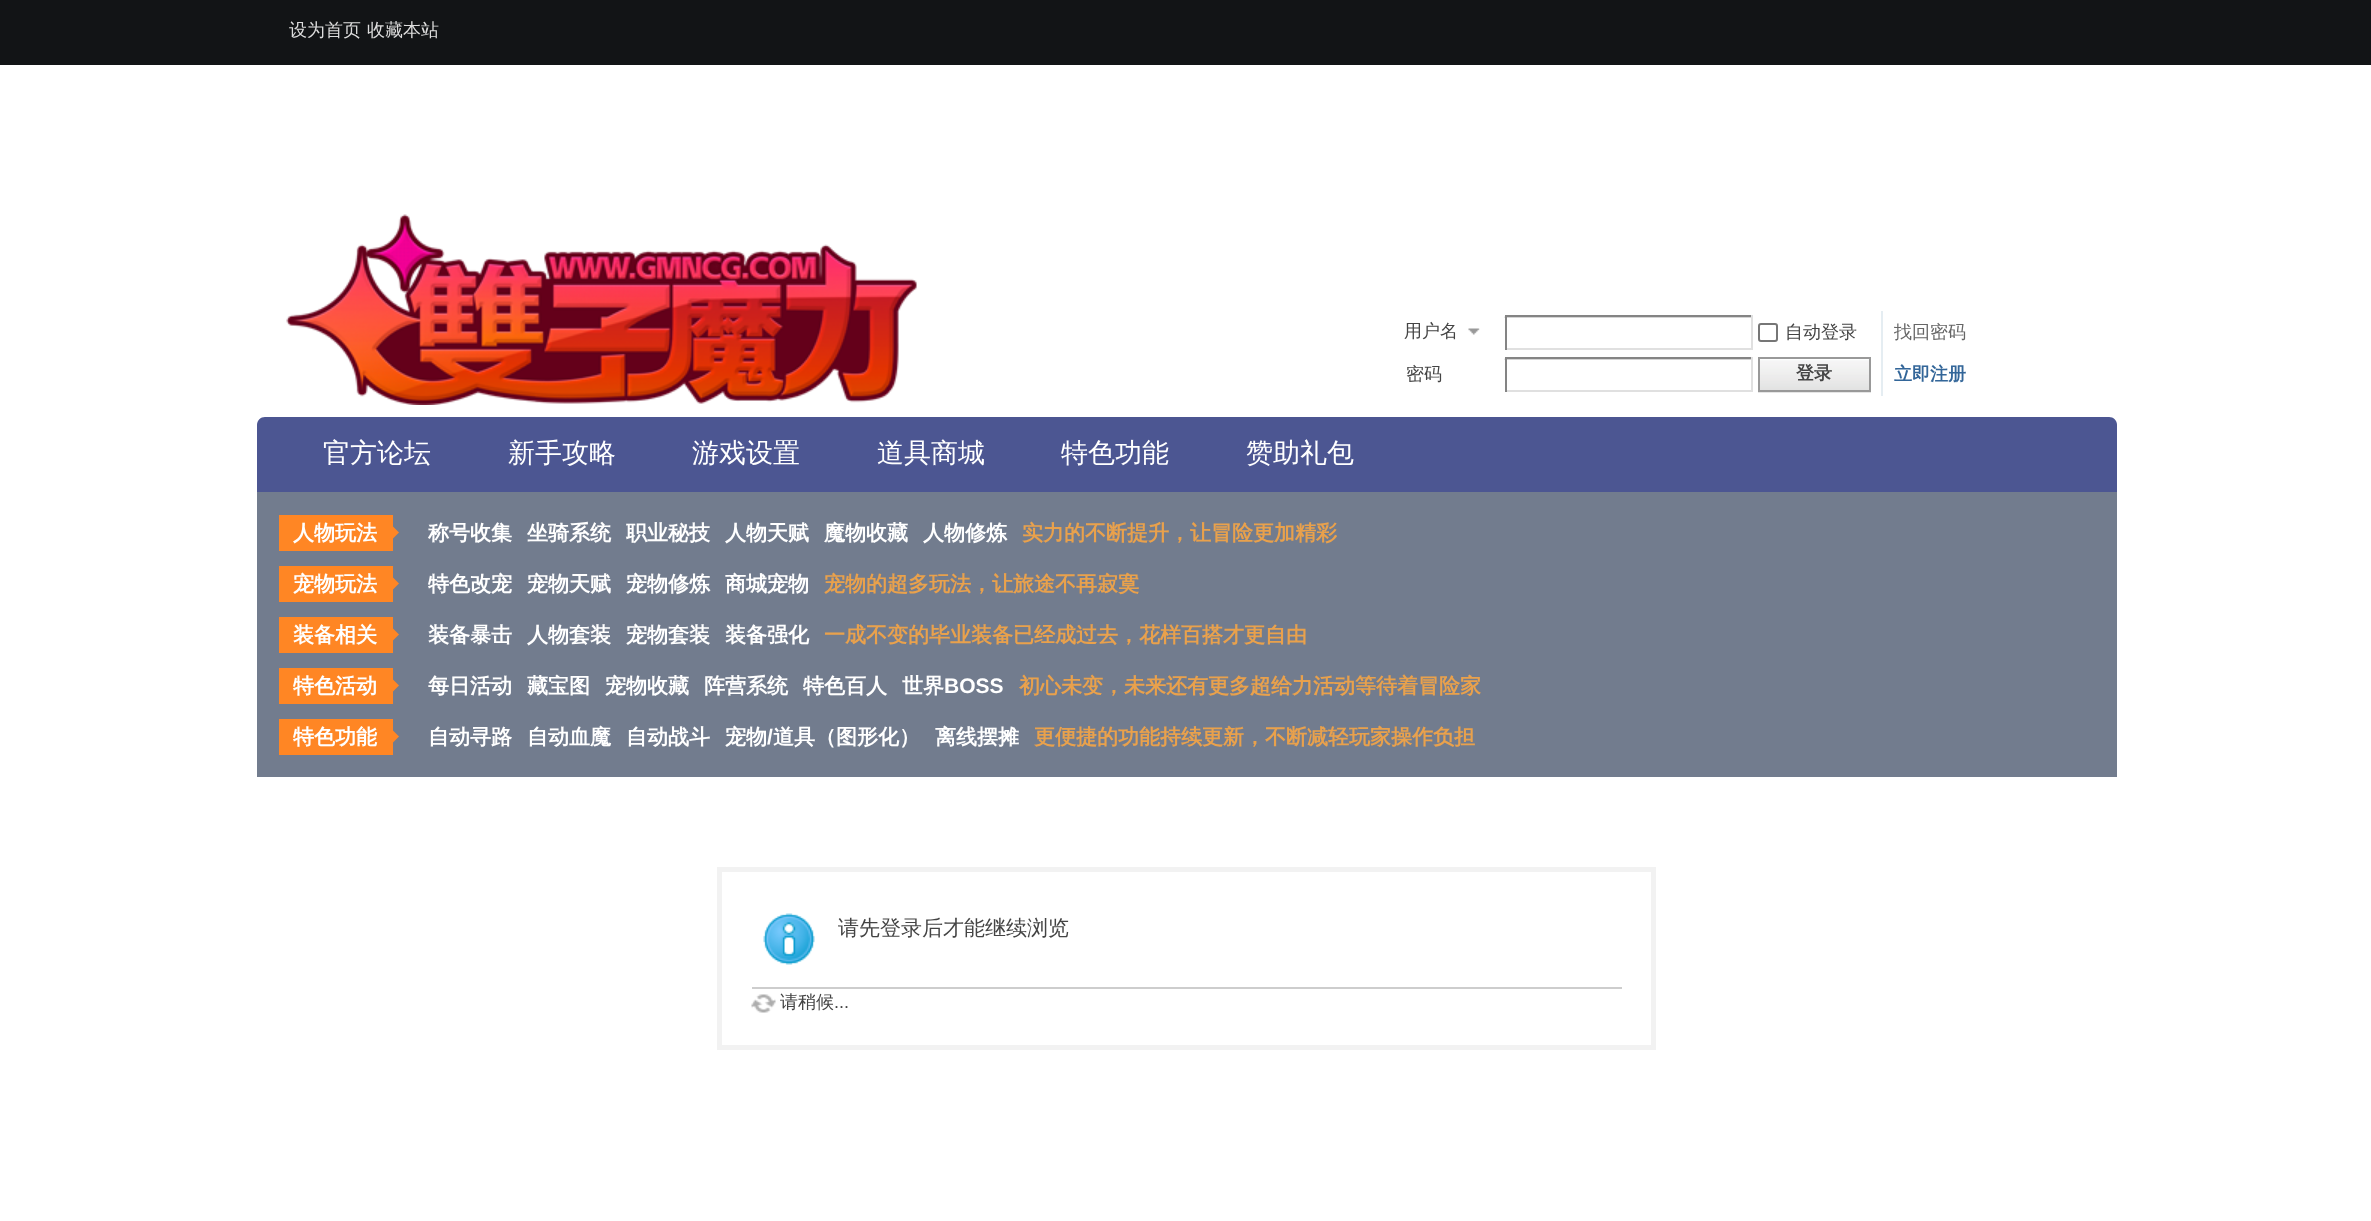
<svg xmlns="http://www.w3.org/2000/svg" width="2371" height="1221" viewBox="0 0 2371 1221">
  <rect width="100%" height="100%" fill="#fff"/>
  <path d="M0 0h2371v65H0z" fill="#121416"/>
  <image x="286" y="214" width="631" height="191" href="img/1.png"/>
  <image x="1468" y="328" width="12" height="7" href="img/2.png"/>
  <image x="1504" y="316" width="247" height="2" href="img/3.png"/>
  <path d="M1505 315h247v2H1505z" fill="#848484"/>
  <path d="M1751 315h2v35H1751z" fill="#e0e0e0"/>
  <path d="M1505 348h247v2H1505z" fill="#e0e0e0"/>
  <path d="M1505 315h2v35H1505z" fill="#848484"/>
  <rect x="1759" y="324" width="18" height="17" rx="2" fill="none" stroke="#767676" stroke-width="2"/>
  <image x="1504" y="358" width="247" height="2" href="img/3.png"/>
  <path d="M1505 357h247v2H1505z" fill="#848484"/>
  <path d="M1751 357h2v35H1751z" fill="#e0e0e0"/>
  <path d="M1505 390h247v2H1505z" fill="#e0e0e0"/>
  <path d="M1505 357h2v35H1505z" fill="#848484"/>
  <path d="M1881 311h2v85H1881z" fill="#e5edf2"/>
  <path d="M1758 392V393H1871V359H1870V392Z" fill="#e5e5e5"/>
  <image x="1760" y="359" width="109" height="31" href="img/4.png"/>
  <path d="M1759 358h111v33H1759z" fill="none" stroke="#999" stroke-width="2"/>
  <path d="M265 417H2109C2113.5 417 2117 420.5 2117 425V492H257V425C257 420.5 260.5 417 265 417Z" fill="#4c5692"/>
  <path d="M257 492h1860v285H257z" fill="#727c8e"/>
  <path d="M279 515h114v36H279z" fill="#ff8624"/>
  <path d="M393 538.5V526.5L399 532.5Z" fill="#ff8624"/>
  <path d="M279 566h114v36H279z" fill="#ff8624"/>
  <path d="M393 589.5V577.5L399 583.5Z" fill="#ff8624"/>
  <path d="M279 617h114v36H279z" fill="#ff8624"/>
  <path d="M393 640.5V628.5L399 634.5Z" fill="#ff8624"/>
  <path d="M279 668h114v36H279z" fill="#ff8624"/>
  <path d="M393 691.5V679.5L399 685.5Z" fill="#ff8624"/>
  <path d="M279 719h114v36H279z" fill="#ff8624"/>
  <path d="M393 742.5V730.5L399 736.5Z" fill="#ff8624"/>
  <path d="M719.5 869.5h934v178H719.5z" fill="none" stroke="#f2f2f2" stroke-width="5"/>
  <image x="763" y="913" width="52" height="52" href="img/5.png"/>
  <path d="M752 987h870v2H752z" fill="#cdcdcd"/>
  <image x="751" y="994" width="25" height="19" href="img/6.png"/>
  <g font-family="WenQuanYi Zen Hei" font-size="18" font-weight="500" fill="#ddd">
    <text x="289" y="36">设为首页</text>
    <text x="367" y="36">收藏本站</text>
  </g>
  <g font-family="WenQuanYi Zen Hei" font-size="18" font-weight="500" fill="#444">
    <text x="1404" y="337">用户名</text>
    <text x="1785" y="338">自动登录</text>
  </g>
  <text x="1894" y="338" font-family="WenQuanYi Zen Hei" font-size="18" font-weight="500" fill="#666">找回密码</text>
  <text x="1406" y="380" font-family="WenQuanYi Zen Hei" font-size="18" font-weight="500" fill="#444">密码</text>
  <text x="1796" y="379" font-family="WenQuanYi Zen Hei" font-size="18" font-weight="bold" fill="#444">登录</text>
  <text x="1894" y="380" font-family="WenQuanYi Zen Hei" font-size="18" font-weight="bold" fill="#369">立即注册</text>
  <g font-family="WenQuanYi Zen Hei" font-size="27" font-weight="500" fill="#fff">
    <text x="323" y="462">官方论坛</text>
    <text x="508" y="462">新手攻略</text>
    <text x="692" y="462">游戏设置</text>
    <text x="877" y="462">道具商城</text>
    <text x="1061" y="462">特色功能</text>
    <text x="1246" y="462">赞助礼包</text>
  </g>
  <g font-family="WenQuanYi Zen Hei" font-size="21" font-weight="bold" fill="#fff">
    <text x="293" y="540">人物玩法</text>
    <text x="428" y="540">称号收集</text>
    <text x="527" y="540">坐骑系统</text>
    <text x="626" y="540">职业秘技</text>
    <text x="725" y="540">人物天赋</text>
    <text x="824" y="540">魔物收藏</text>
    <text x="923" y="540">人物修炼</text>
  </g>
  <text x="1022" y="540" font-family="WenQuanYi Zen Hei" font-size="21" font-weight="bold" fill="#e9a14c">实力的不断提升，让冒险更加精彩</text>
  <g font-family="WenQuanYi Zen Hei" font-size="21" font-weight="bold" fill="#fff">
    <text x="293" y="591">宠物玩法</text>
    <text x="428" y="591">特色改宠</text>
    <text x="527" y="591">宠物天赋</text>
    <text x="626" y="591">宠物修炼</text>
    <text x="725" y="591">商城宠物</text>
  </g>
  <text x="824" y="591" font-family="WenQuanYi Zen Hei" font-size="21" font-weight="bold" fill="#e9a14c">宠物的超多玩法，让旅途不再寂寞</text>
  <g font-family="WenQuanYi Zen Hei" font-size="21" font-weight="bold" fill="#fff">
    <text x="293" y="642">装备相关</text>
    <text x="428" y="642">装备暴击</text>
    <text x="527" y="642">人物套装</text>
    <text x="626" y="642">宠物套装</text>
    <text x="725" y="642">装备强化</text>
  </g>
  <text x="824" y="642" font-family="WenQuanYi Zen Hei" font-size="21" font-weight="bold" fill="#e9a14c">一成不变的毕业装备已经成过去，花样百搭才更自由</text>
  <g font-family="WenQuanYi Zen Hei" font-size="21" font-weight="bold" fill="#fff">
    <text x="293" y="693">特色活动</text>
    <text x="428" y="693">每日活动</text>
    <text x="527" y="693">藏宝图</text>
    <text x="605" y="693">宠物收藏</text>
    <text x="704" y="693">阵营系统</text>
    <text x="803" y="693">特色百人</text>
    <text x="902" y="693">世界</text>
  </g>
  <text x="944" y="693" font-family="Liberation Sans" font-size="21" font-weight="bold" fill="#fff">BOSS</text>
  <text x="1019" y="693" font-family="WenQuanYi Zen Hei" font-size="21" font-weight="bold" fill="#e9a14c">初心未变，未来还有更多超给力活动等待着冒险家</text>
  <g font-family="WenQuanYi Zen Hei" font-size="21" font-weight="bold" fill="#fff">
    <text x="293" y="744">特色功能</text>
    <text x="428" y="744">自动寻路</text>
    <text x="527" y="744">自动血魔</text>
    <text x="626" y="744">自动战斗</text>
    <text x="725" y="744">宠物</text>
  </g>
  <text x="767" y="744" font-family="Liberation Sans" font-size="21" font-weight="bold" fill="#fff">/</text>
  <g font-family="WenQuanYi Zen Hei" font-size="21" font-weight="bold" fill="#fff">
    <text x="773" y="744">道具（图形化）</text>
    <text x="935" y="744">离线摆摊</text>
  </g>
  <text x="1034" y="744" font-family="WenQuanYi Zen Hei" font-size="21" font-weight="bold" fill="#e9a14c">更便捷的功能持续更新，不断减轻玩家操作负担</text>
  <text x="838" y="935" font-family="WenQuanYi Zen Hei" font-size="21" font-weight="500" fill="#444">请先登录后才能继续浏览</text>
  <text x="780" y="1008" font-family="WenQuanYi Zen Hei" font-size="18" font-weight="500" fill="#444">请稍候</text>
  <text x="834" y="1008" font-family="Liberation Sans" font-size="18" fill="#444">...</text>
</svg>
